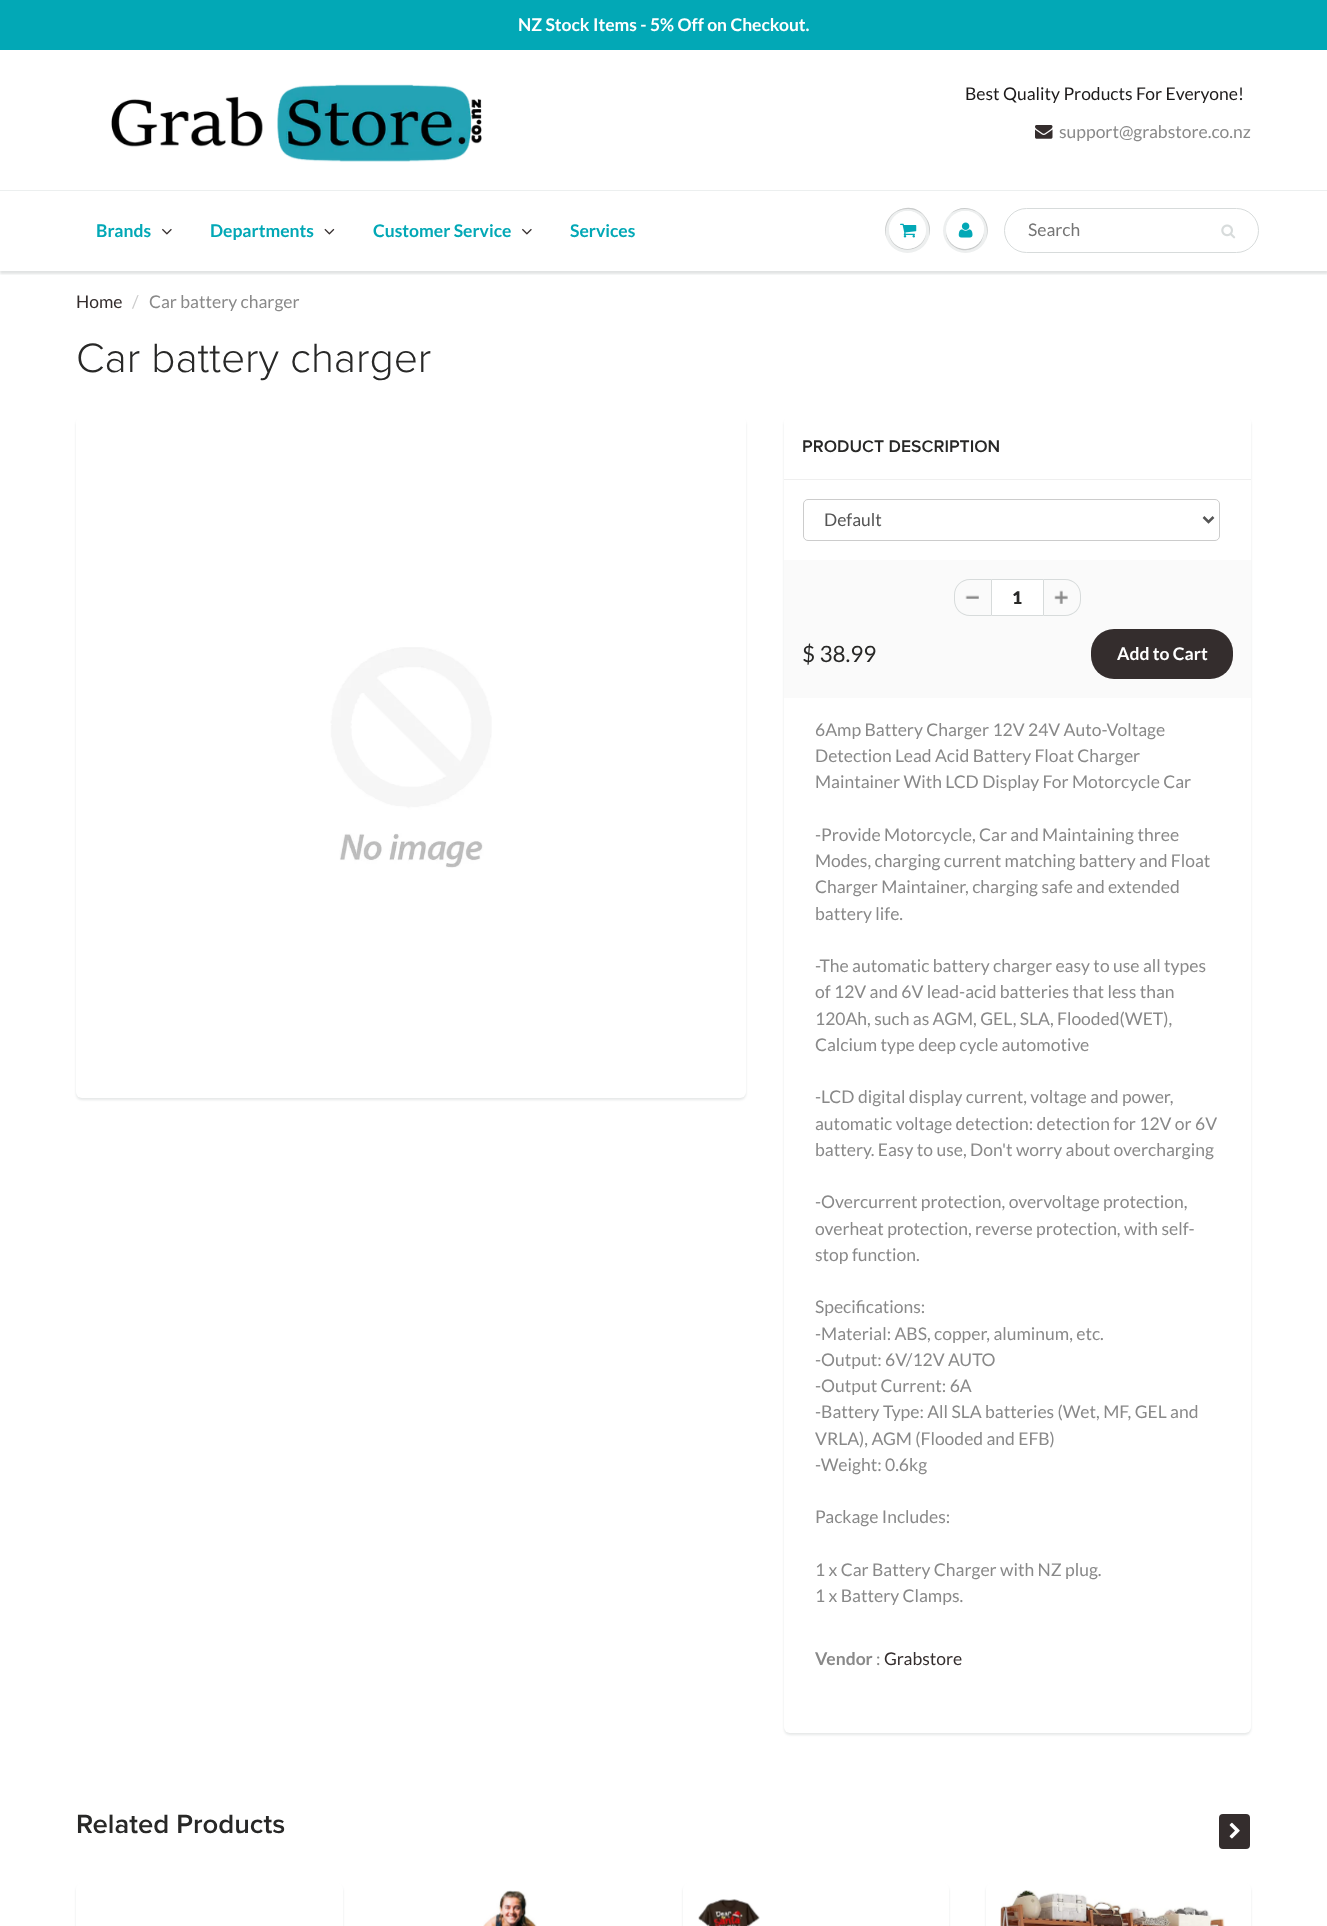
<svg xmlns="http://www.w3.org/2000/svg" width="1327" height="1926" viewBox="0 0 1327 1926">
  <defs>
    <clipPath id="clip1"><path d="M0 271h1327v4H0z"/></clipPath>
  </defs>
  <rect width="100%" height="100%" fill="#fff"/>
  <path d="M0 0h1327v50H0z" fill="#02a8b6"/>
  <image x="111" y="84" width="371" height="78" href="img/1.png"/>
  <image x="1035" y="125" width="18" height="14" href="img/2.png"/>
  <g clip-path="url(#clip1)">
    <path d="M0 193h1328v81H0z" fill="#0b191c1f" filter="blur(1px)"/>
  </g>
  <path d="M0 190h1327v1H0z" fill="#ecefef"/>
  <image x="162" y="228" width="10" height="7" href="img/3.png"/>
  <image x="324" y="228" width="11" height="7" href="img/4.png"/>
  <image x="522" y="228" width="10" height="7" href="img/3.png"/>
  <circle cx="907.5" cy="230.5" r="22.5" fill="#edefef"/>
  <path d="M908 209C924 209 931 223 929 236C931 230 930 223 926 218C911 195 877 215 887 239C883 226 890 209 908 209Z" fill="#c9cbcb"/>
  <path d="M889 234C892 255 923 255 926 234C921.5 253.5 893.5 253.5 889 234Z" fill="#c9cbcb"/>
  <rect x="889" y="211" width="37" height="38" rx="18.5" fill="#fff"/>
  <path d="M908 212C920 212 926 221.5 926 230.5C926.5 209 898.5 203.5 890.5 222.5C888.5 226.5 888.5 231.5 890 236C887 225.5 893 212 908 212Z" fill="#fff"/>
  <image x="900" y="223" width="17" height="15" href="img/5.png"/>
  <circle cx="965.5" cy="230.5" r="22.5" fill="#edefef"/>
  <path d="M965 209C983 209 990 226 986 239C995 217 967 198 950 214C954 211 959 209 965 209Z" fill="#c9cbcb"/>
  <path d="M946.5 227.5C942 248 969.5 258.5 981 242C983.5 237.5 984.5 232.5 983.5 227.5C984 232 983 237 980.5 240.5C969.5 256.5 944 247 946.5 227.5Z" fill="#c9cbcb"/>
  <circle cx="965" cy="230" r="19" fill="#fff"/>
  <path d="M965 212C979 212 985 224 983 234C985 229 984 224 981 219C969 202 942 214 947 234C945 224 951 212 965 212Z" fill="#fff"/>
  <image x="958" y="222" width="15" height="16" href="img/6.png"/>
  <rect x="1004.5" y="208.5" width="254" height="44" rx="22" fill="none" stroke="#d7dbdb"/>
  <image x="1221" y="224" width="15" height="15" href="img/7.png"/>
  <rect x="76" y="419" width="670" height="681" rx="6" fill="#0b191c1a" filter="blur(1px)"/>
  <rect x="76" y="416" width="670" height="682" rx="6" fill="#fff"/>
  <image x="330" y="647" width="162" height="221" href="img/8.png"/>
  <rect x="784" y="419" width="467" height="1316" rx="6" fill="#0b191c1a" filter="blur(1px)"/>
  <rect x="784" y="416" width="467" height="1317" rx="6" fill="#fff"/>
  <path d="M784 479h467v1H784z" fill="#efefef"/>
  <rect x="803.5" y="499.5" width="416" height="41" rx="4.5" fill="none" stroke="#ccc"/>
  <path d="M1203.5 517L1208.5 522L1213.5 517" fill="none" stroke="#555" stroke-width="2.5"/>
  <path d="M784 560h467v138H784z" fill="#fafafa"/>
  <image x="965" y="595" width="14" height="4" href="img/9.png"/>
  <path d="M970 579H991V616H970C961 616 954 609 954 600V595C954 586 961 579 970 579ZM970 580H991V615H970C961.5 615 955 608.5 955 600V595C955 586.5 961.5 580 970 580Z" fill="#d7dbdb" fill-rule="evenodd"/>
  <path d="M991.5 579.5h52v36H991.5z" fill="#fff" stroke="#d7dbdb"/>
  <image x="1054" y="590" width="14" height="14" href="img/10.png"/>
  <path d="M1044 579H1065C1074 579 1081 586 1081 595V600C1081 609 1074 616 1065 616H1044ZM1044 580H1065C1073.5 580 1080 586.5 1080 595V600C1080 608.5 1073.5 615 1065 615H1044Z" fill="#d7dbdb" fill-rule="evenodd"/>
  <rect x="1091" y="629" width="142" height="50" rx="23" fill="#342d2d"/>
  <rect x="1219" y="1814" width="31" height="35" rx="4" fill="#342d2d"/>
  <image x="1229" y="1822" width="11" height="17" href="img/11.png"/>
  <rect x="76" y="1885" width="267" height="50" rx="6" fill="#0b191c1a" filter="blur(1px)"/>
  <rect x="76" y="1883" width="267" height="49" rx="6" fill="#fff"/>
  <image x="483" y="1890" width="54" height="36" href="img/12.png"/>
  <rect x="683" y="1885" width="266" height="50" rx="6" fill="#0b191c1a" filter="blur(1px)"/>
  <rect x="683" y="1883" width="266" height="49" rx="6" fill="#fff"/>
  <image x="698" y="1899" width="62" height="27" href="img/13.png"/>
  <rect x="986" y="1885" width="265" height="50" rx="6" fill="#0b191c1a" filter="blur(1px)"/>
  <rect x="986" y="1883" width="265" height="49" rx="6" fill="#fff"/>
  <image x="1000" y="1890" width="225" height="36" href="img/14.png"/>
  <text x="518" y="31" font-family="Lato" font-size="17.5" font-weight="bold" fill="#fff">NZ Stock Items - 5% Off on Checkout.</text>
  <text x="965" y="100" font-family="Lato" font-size="17.5" fill="#1c1a1a">Best Quality Products For Everyone!</text>
  <text x="1059" y="138" font-family="Lato" font-size="17.5" fill="#898989">support@grabstore.co.nz</text>
  <g font-family="Lato" font-size="17.5" font-weight="bold" fill="#02a8b6">
    <text x="96" y="237">Brands</text>
    <text x="210" y="237">Departments</text>
    <text x="373" y="237">Customer Service</text>
    <text x="570" y="237">Services</text>
  </g>
  <text x="1028" y="236" font-family="Lato" font-size="17.5" fill="#757575">Search</text>
  <text x="76" y="308" font-family="Lato" font-size="17.5" fill="#342d2d">Home</text>
  <text x="132" y="308" font-family="Lato" font-size="17.5" fill="#ccc">/</text>
  <text x="149" y="308" font-family="Lato" font-size="17.5" fill="#898989">Car battery charger</text>
  <text x="76" y="372" font-family="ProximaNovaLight" font-size="42.5" font-weight="300" fill="#282827">Car battery charger</text>
  <text x="802" y="452" font-family="ProximaNovaLight" font-size="17.5" font-weight="600" fill="#282827">PRODUCT DESCRIPTION</text>
  <text x="824" y="526" font-family="Lato" font-size="17.5" fill="#555">Default</text>
  <text x="1012" y="604" font-family="Lato" font-size="17.5" font-weight="900" fill="#282827">1</text>
  <text x="802" y="662" font-family="Lato" font-size="22.5" fill="#282827">$ 38.99</text>
  <text x="1117" y="660" font-family="Lato" font-size="17.5" font-weight="bold" fill="#fff">Add to Cart</text>
  <g font-family="Lato" font-size="17.5" fill="#898989">
    <text x="815" y="736">6Amp Battery Charger 12V 24V Auto-Voltage</text>
    <text x="815" y="762">Detection Lead Acid Battery Float Charger</text>
    <text x="815" y="788">Maintainer With LCD Display For Motorcycle Car</text>
    <text x="815" y="841">-Provide Motorcycle, Car and Maintaining three</text>
    <text x="815" y="867">Modes, charging current matching battery and Float</text>
    <text x="815" y="893">Charger Maintainer, charging safe and extended</text>
    <text x="815" y="920">battery life.</text>
    <text x="815" y="972">-The automatic battery charger easy to use all types</text>
    <text x="815" y="998">of 12V and 6V lead-acid batteries that less than</text>
    <text x="815" y="1025">120Ah, such as AGM, GEL, SLA, Flooded(WET),</text>
    <text x="815" y="1051">Calcium type deep cycle automotive</text>
    <text x="815" y="1103">-LCD digital display current, voltage and power,</text>
    <text x="815" y="1130">automatic voltage detection: detection for 12V or 6V</text>
    <text x="815" y="1156">battery. Easy to use, Don't worry about overcharging</text>
    <text x="815" y="1208">-Overcurrent protection, overvoltage protection,</text>
    <text x="815" y="1235">overheat protection, reverse protection, with self-</text>
    <text x="815" y="1261">stop function.</text>
    <text x="815" y="1313">Specifications:</text>
    <text x="815" y="1340">-Material: ABS, copper, aluminum, etc.</text>
    <text x="815" y="1366">-Output: 6V/12V AUTO</text>
    <text x="815" y="1392">-Output Current: 6A</text>
    <text x="815" y="1418">-Battery Type: All SLA batteries (Wet, MF, GEL and</text>
    <text x="815" y="1445">VRLA), AGM (Flooded and EFB)</text>
    <text x="815" y="1471">-Weight: 0.6kg</text>
    <text x="815" y="1523">Package Includes:</text>
    <text x="815" y="1576">1 x Car Battery Charger with NZ plug.</text>
    <text x="815" y="1602">1 x Battery Clamps.</text>
  </g>
  <text x="815" y="1665" font-family="Lato" font-size="17.5" font-weight="bold" fill="#898989">Vendor</text>
  <text x="876" y="1665" font-family="Lato" font-size="17.5" fill="#898989">:</text>
  <text x="884" y="1665" font-family="Lato" font-size="17.5" fill="#342d2d">Grabstore</text>
  <text x="76" y="1833" font-family="ProximaNovaLight" font-size="27.5" font-weight="600" fill="#282827">Related Products</text>
</svg>
